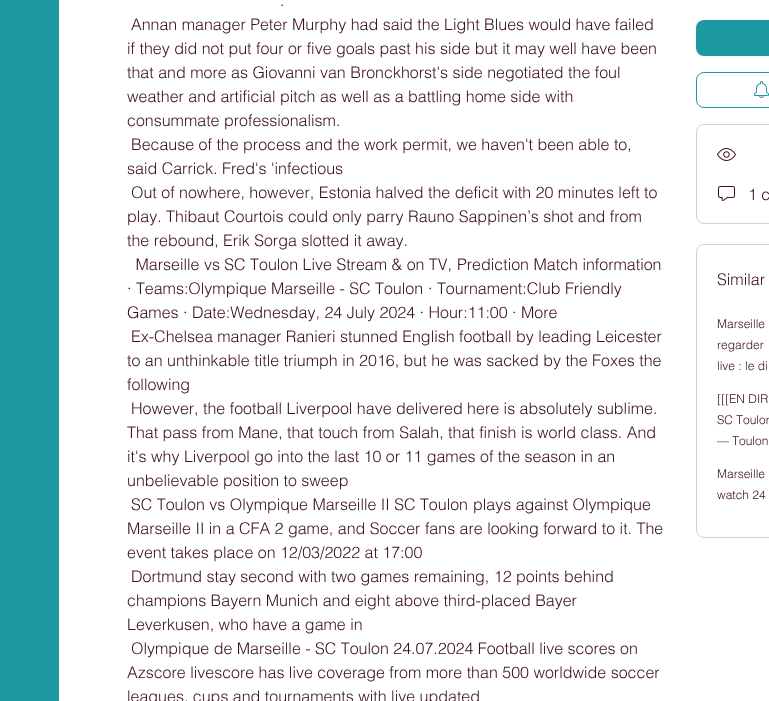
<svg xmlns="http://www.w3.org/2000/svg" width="769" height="701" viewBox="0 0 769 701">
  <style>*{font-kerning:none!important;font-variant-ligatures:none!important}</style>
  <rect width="100%" height="100%" fill="#1d99a1"/>
  <path d="M59 0h710v701H59z" fill="#fff"/>
  <rect x="696" y="20" width="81" height="36" rx="8" fill="#1d99a1"/>
  <rect x="696.5" y="72.5" width="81" height="35" rx="7.5" fill="none" stroke="#1d99a1"/>
  <image x="754" y="81" width="15" height="17" href="img/1.png"/>
  <rect x="696.5" y="124.5" width="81" height="99" rx="7.5" fill="none" stroke="#d8cfd1"/>
  <image x="717" y="148" width="19" height="13" href="img/2.png"/>
  <image x="718" y="186" width="17" height="15" href="img/3.png"/>
  <rect x="696.5" y="244.5" width="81" height="293" rx="7.5" fill="none" stroke="#d8cfd1"/>
  <g font-family="helvetica" font-size="16" font-weight="300" fill="#3b1119">
    <text x="280" y="6">.</text>
    <text x="131" y="30">Annan manager Peter Murphy had said the Light Blues would have failed</text>
    <text x="127" y="54">if they did not put four or five goals past his side but it may well have been</text>
    <text x="127" y="78">that and more as Giovanni van Bronckhorst's side negotiated the foul</text>
    <text x="127" y="102">weather and artificial pitch as well as a battling home side with</text>
    <text x="127" y="126">consummate professionalism.</text>
    <text x="131" y="150">Because of the process and the work permit, we haven't been able to,</text>
    <text x="127" y="174">said Carrick. Fred's 'infectious</text>
    <text x="131" y="198">Out of nowhere, however, Estonia halved the deficit with 20 minutes left to</text>
    <text x="127" y="222">play. Thibaut Courtois could only parry Rauno Sappinen’s shot and from</text>
    <text x="127" y="246">the rebound, Erik Sorga slotted it away.</text>
    <text x="131" y="270">️ Marseille vs SC Toulon Live Stream &amp; on TV,</text>
    <text x="457" y="270">Prediction Match information</text>
    <text x="127" y="294">· Teams:Olympique Marseille - SC Toulon</text>
    <text x="428" y="294">· Tournament:Club Friendly</text>
    <text x="127" y="318">Games · Date:Wednesday, 24 July 2024 · Hour:11:00 · More</text>
    <text x="131" y="342">Ex-Chelsea manager Ranieri stunned English football by leading Leicester</text>
    <text x="127" y="366">to an unthinkable title triumph in 2016, but he was sacked by the Foxes the</text>
    <text x="127" y="390">following</text>
    <text x="131" y="414">However, the football Liverpool have delivered here is absolutely sublime.</text>
    <text x="127" y="438">That pass from Mane, that touch from Salah, that finish is world class. And</text>
    <text x="127" y="462">it's why Liverpool go into the last 10 or 11 games of the season in an</text>
    <text x="127" y="486">unbelievable position to sweep</text>
    <text x="131" y="510">SC Toulon vs Olympique Marseille II SC Toulon</text>
    <text x="473" y="510">plays against Olympique</text>
    <text x="127" y="534">Marseille II in a CFA 2 game, and Soccer fans are looking forward to it. The</text>
    <text x="127" y="558">event takes place on 12/03/2022 at 17:00</text>
    <text x="131" y="582">Dortmund stay second with two games remaining, 12 points behind</text>
    <text x="127" y="606">champions Bayern Munich and eight above third-placed Bayer</text>
    <text x="127" y="630">Leverkusen, who have a game in</text>
    <text x="131" y="654">Olympique de Marseille - SC Toulon 24.07.2024 Football live scores on</text>
    <text x="127" y="678">Azscore livescore has live coverage from more than 500 worldwide soccer</text>
    <text x="127" y="702">leagues, cups and tournaments with live updated</text>
    <text x="748" y="200">1 c</text>
    <text x="717" y="285">Similar</text>
  </g>
  <g font-family="helvetica" font-size="12" font-weight="300" fill="#3b1119">
    <text x="717" y="328">Marseille</text>
    <text x="717" y="349">regarder</text>
    <text x="717" y="370">live : le di</text>
    <text x="717" y="403">[[[EN DIR</text>
    <text x="717" y="424">SC Toulon</text>
    <text x="717" y="445">— Toulon</text>
    <text x="717" y="478">Marseille</text>
    <text x="717" y="499">watch 24</text>
  </g>
</svg>
